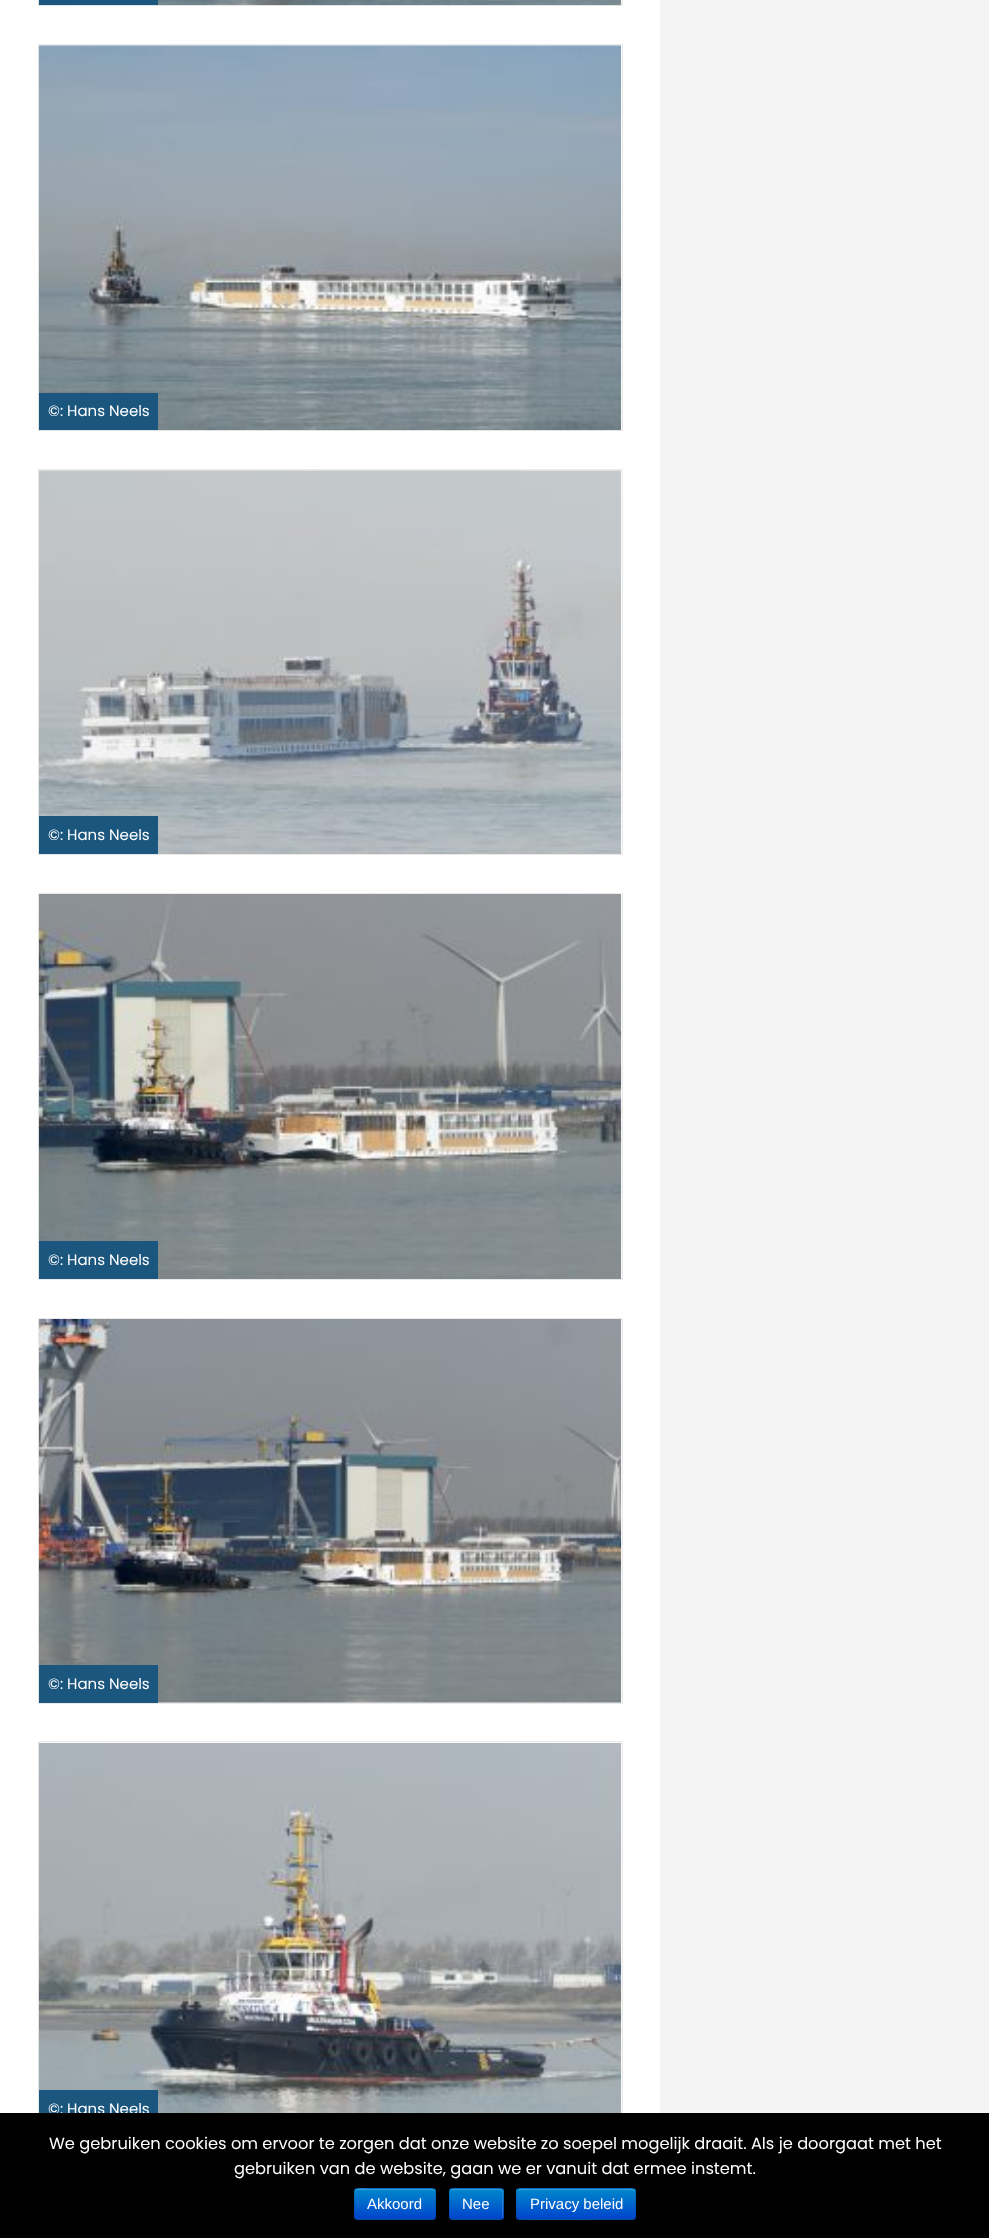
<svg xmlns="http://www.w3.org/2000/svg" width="989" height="2238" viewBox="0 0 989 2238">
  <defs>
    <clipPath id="clip1"><rect x="354" y="2188" width="82" height="32" rx="4"/></clipPath>
    <linearGradient id="g1" gradientUnits="userSpaceOnUse" x1="395" y1="2189" x2="395" y2="2219"><stop offset="0" stop-color="#08c"/><stop offset="1" stop-color="#04c"/></linearGradient>
    <clipPath id="clip2"><rect x="449" y="2188" width="55" height="32" rx="4"/></clipPath>
    <linearGradient id="g2" gradientUnits="userSpaceOnUse" x1="476" y1="2189" x2="476" y2="2219"><stop offset="0" stop-color="#08c"/><stop offset="1" stop-color="#04c"/></linearGradient>
    <clipPath id="clip3"><rect x="516" y="2188" width="120" height="32" rx="4"/></clipPath>
    <linearGradient id="g3" gradientUnits="userSpaceOnUse" x1="576" y1="2189" x2="576" y2="2219"><stop offset="0" stop-color="#08c"/><stop offset="1" stop-color="#04c"/></linearGradient>
  </defs>
  <rect width="100%" height="100%" fill="#f3f3f3"/>
  <path d="M0 0h660v2113H0z" fill="#fff"/>
  <path d="M38.5 -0.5h584v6H38.5z" fill="none" stroke="#e9e9e9"/>
  <image x="38" y="0" width="584" height="6" href="img/1.png"/>
  <path d="M39 0h119v5H39z" fill="#1a567e"/>
  <path d="M38.5 44.5h584v386H38.5z" fill="none" stroke="#e9e9e9"/>
  <image x="38" y="45" width="584" height="386" href="img/2.png"/>
  <path d="M39 393h119v37H39z" fill="#1a567e"/>
  <path d="M38.5 469.5h584v385H38.5z" fill="none" stroke="#e9e9e9"/>
  <image x="38" y="470" width="584" height="384" href="img/3.png"/>
  <path d="M39 816h119v38H39z" fill="#1a567e"/>
  <path d="M38.5 893.5h584v386H38.5z" fill="none" stroke="#e9e9e9"/>
  <image x="38" y="894" width="584" height="385" href="img/4.png"/>
  <path d="M39 1241h119v38H39z" fill="#1a567e"/>
  <path d="M38.5 1318.5h584v385H38.5z" fill="none" stroke="#e9e9e9"/>
  <image x="38" y="1319" width="584" height="384" href="img/5.png"/>
  <path d="M39 1665h119v38H39z" fill="#1a567e"/>
  <path d="M38.5 1741.5h584v387H38.5z" fill="none" stroke="#e9e9e9"/>
  <image x="38" y="1742" width="584" height="371" href="img/6.png"/>
  <path d="M39 2090h119v23H39z" fill="#1a567e"/>
  <g font-family="Poppins" font-size="15" fill="#fff">
    <text x="48" y="416">©: Hans Neels</text>
    <text x="48" y="840">©: Hans Neels</text>
    <text x="48" y="1265">©: Hans Neels</text>
    <text x="48" y="1689">©: Hans Neels</text>
    <text x="48" y="2114">©: Hans Neels</text>
  </g>
  <path d="M0 2113h989v125H0z" fill="#000"/>
  <g font-family="Poppins" font-size="16.25" fill="#fff">
    <text x="49" y="2149">We gebruiken cookies om ervoor te zorgen dat onze website zo soepel mogelijk draait. Als je doorgaat met het</text>
    <text x="234" y="2174">gebruiken van de website, gaan we er vanuit dat ermee instemt.</text>
  </g>
  <rect x="354" y="2188" width="82" height="32" rx="4" fill="#006dcc"/>
  <g clip-path="url(#clip1)">
    <path d="M354 2189h82v30H354z" fill="url(#g1)"/>
  </g>
  <path d="M358 2190H432C434 2190 435 2191 435 2192C435 2190 434 2189 432 2189H370C369 2189 355 2186 355 2192C355 2191 356 2190 358 2190Z" fill="#ffffff33"/>
  <path d="M434.5 2218.5L433 2219.5H357L355.5 2218.5" fill="none" stroke="#00000040" stroke-width="1.2"/>
  <path d="M355.5 2218.5C353 2216.5 354.5 2206.5 354.5 2204C354.5 2185.5 351.5 2188 370 2188H420C438.5 2188 435.5 2185.5 435.5 2204C435.5 2206.5 437 2216.5 434.5 2218.5" fill="none" stroke="#0000001a" stroke-width="1.2"/>
  <text x="367" y="2209" font-family="Liberation Sans" font-size="15" fill="#fff">Akkoord</text>
  <rect x="449" y="2188" width="55" height="32" rx="4" fill="#006dcc"/>
  <g clip-path="url(#clip2)">
    <path d="M449 2189h55v30H449z" fill="url(#g2)"/>
  </g>
  <path d="M452 2190H500C504 2190 502 2199 502 2201V2219C503 2218 503 2217 503 2216V2192C503 2190 502 2189 500 2189H452C451 2189 450 2190 450 2192C450 2191 451 2190 452 2190Z" fill="#ffffff33"/>
  <path d="M502 2218.5L500.5 2219.5H452L450.5 2218.5" fill="none" stroke="#00000040" stroke-width="1.2"/>
  <path d="M450.5 2218.5C448 2216.5 449.5 2206.5 449.5 2204C449.5 2188 446 2188 460.5 2188H492C506.5 2188 503 2188 503 2204C503 2206.5 504.5 2216.5 502 2218.5" fill="none" stroke="#0000001a" stroke-width="1.2"/>
  <text x="462" y="2209" font-family="Liberation Sans" font-size="15" fill="#fff">Nee</text>
  <rect x="516" y="2188" width="120" height="32" rx="4" fill="#006dcc"/>
  <g clip-path="url(#clip3)">
    <path d="M516 2189h120v30H516z" fill="url(#g3)"/>
  </g>
  <path d="M520 2190H632L635 2191V2192C635 2190 634 2189 632 2189H520C519 2189 518 2190 518 2192C518 2191 519 2190 520 2190Z" fill="#339fd6"/>
  <path d="M634.5 2218.5L632.5 2219.5H614C604 2219.5 520.5 2220.5 518.5 2219L518 2218.5" fill="none" stroke="#00000040" stroke-width="1.2"/>
  <path d="M518 2218.5C515.5 2216.5 517 2210.5 517 2208C517 2183.5 512.5 2188 539 2188H614C640 2188 635.5 2183.5 635.5 2208C635.5 2210.5 637 2216.5 634.5 2218.5" fill="none" stroke="#0000001a" stroke-width="1.2"/>
  <text x="530" y="2209" font-family="Liberation Sans" font-size="15" fill="#fff">Privacy beleid</text>
</svg>
